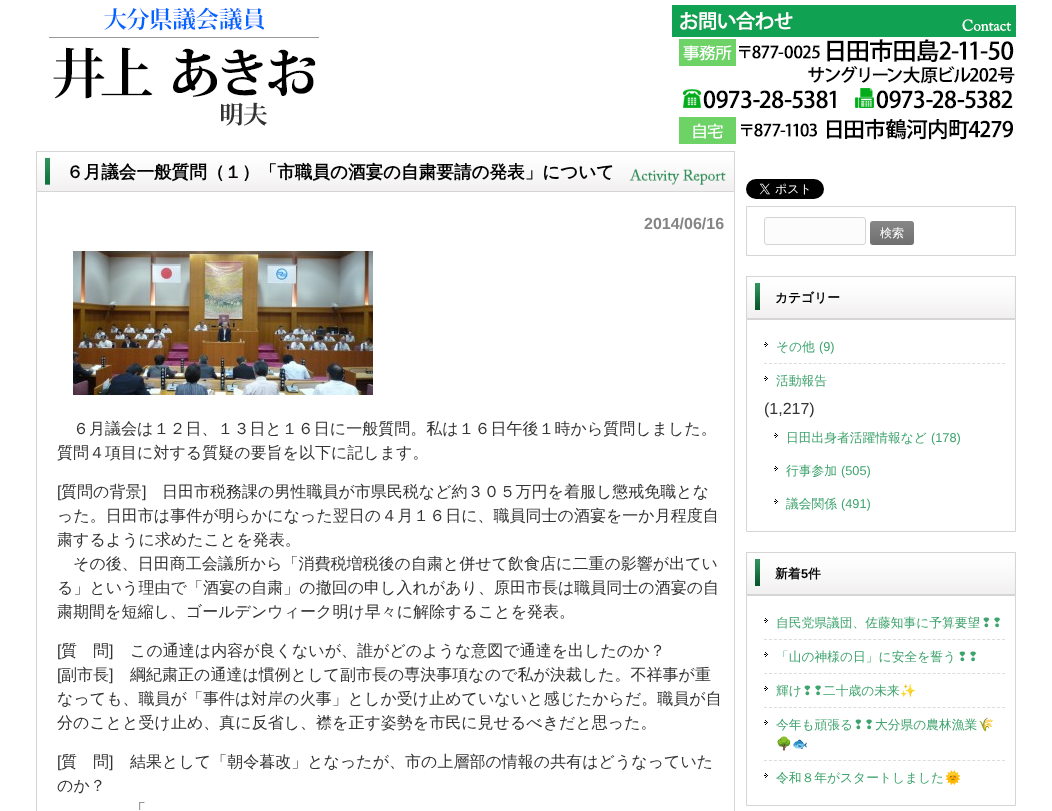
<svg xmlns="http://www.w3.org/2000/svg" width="1052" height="811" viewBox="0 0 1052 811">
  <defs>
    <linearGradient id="g1" gradientUnits="userSpaceOnUse" x1="892" y1="221" x2="892" y2="245"><stop offset="0" stop-color="#878787"/><stop offset="1" stop-color="#6f6f6f"/></linearGradient>
  </defs>
  <rect width="100%" height="100%" fill="#fff"/>
  <image x="49" y="7" width="270" height="119" href="img/1.png"/>
  <image x="672" y="5" width="344" height="139" href="img/2.png"/>
  <image x="36" y="151" width="699" height="40" href="img/3.png"/>
  <path d="M36.5 191.5h698v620H36.5z" fill="none" stroke="#d5d5d5"/>
  <image x="73" y="251" width="300" height="144" href="img/4.png"/>
  <image x="746" y="179" width="78" height="20" href="img/5.png"/>
  <path d="M746.5 206.5h269v49H746.5z" fill="none" stroke="#d5d5d5"/>
  <rect x="764.5" y="217.5" width="101" height="27" rx="2.5" fill="#fcfcfc" stroke="#d4d4d7"/>
  <rect x="870" y="221" width="44" height="24" rx="3" fill="url(#g1)"/>
  <image x="747" y="276" width="268" height="43" href="img/6.png"/>
  <path d="M1015 276h1v43H1015z" fill="#d5d5d5"/>
  <path d="M746 276h1v43H746z" fill="#d5d5d5"/>
  <path d="M746.5 319.5h269v212H746.5z" fill="none" stroke="#d5d5d5"/>
  <image x="764" y="342" width="4" height="5" href="img/7.png"/>
  <path d="M764 363.5H1005" fill="none" stroke="#dcdcdc" stroke-dasharray="3 1.96"/>
  <image x="764" y="376" width="4" height="5" href="img/7.png"/>
  <image x="774" y="433" width="4" height="5" href="img/7.png"/>
  <image x="774" y="466" width="4" height="5" href="img/7.png"/>
  <image x="774" y="499" width="4" height="5" href="img/7.png"/>
  <image x="747" y="552" width="268" height="43" href="img/6.png"/>
  <path d="M1015 552h1v43H1015z" fill="#d5d5d5"/>
  <path d="M746 552h1v43H746z" fill="#d5d5d5"/>
  <path d="M746.5 595.5h269v210H746.5z" fill="none" stroke="#d5d5d5"/>
  <image x="764" y="618" width="4" height="5" href="img/7.png"/>
  <path d="M764 639.5H1005" fill="none" stroke="#dcdcdc" stroke-dasharray="3 1.96"/>
  <image x="764" y="652" width="4" height="5" href="img/7.png"/>
  <path d="M764 673.5H1005" fill="none" stroke="#dcdcdc" stroke-dasharray="3 1.96"/>
  <image x="764" y="686" width="4" height="5" href="img/7.png"/>
  <path d="M764 707.5H1005" fill="none" stroke="#dcdcdc" stroke-dasharray="3 1.96"/>
  <image x="764" y="720" width="4" height="5" href="img/7.png"/>
  <path d="M764 760.5H1005" fill="none" stroke="#dcdcdc" stroke-dasharray="3 1.96"/>
  <image x="764" y="773" width="4" height="5" href="img/7.png"/>
  <text x="66" y="178" font-family="WenQuanYi Zen Hei" font-size="17.6" font-weight="bold" fill="#000">６月議会一般質問（１）「市職員の酒宴の自粛要請の発表」について</text>
  <text x="644" y="229" font-family="Liberation Sans" font-size="16" font-weight="bold" fill="#858585">2014/06/16</text>
  <g font-family="WenQuanYi Zen Hei" font-size="16" font-weight="500" fill="#333">
    <text x="73" y="434">６月議会は１２日、１３日と１６日に一般質問。私は１６日午後１時から質問しました。</text>
    <text x="57" y="458">質問４項目に対する質疑の要旨を以下に記します。</text>
  </g>
  <text x="57" y="497" font-family="Liberation Sans" font-size="16" fill="#333">[</text>
  <text x="61" y="497" font-family="WenQuanYi Zen Hei" font-size="16" font-weight="500" fill="#333">質問の背景</text>
  <text x="142" y="497" font-family="Liberation Sans" font-size="16" fill="#333">]</text>
  <g font-family="WenQuanYi Zen Hei" font-size="16" font-weight="500" fill="#333">
    <text x="162" y="497">日田市税務課の男性職員が市県民税など約３０５万円を着服し懲戒免職とな</text>
    <text x="57" y="521">った。日田市は事件が明らかになった翌日の４月１６日に、職員同士の酒宴を一か月程度自</text>
    <text x="57" y="545">粛するように求めたことを発表。</text>
    <text x="73" y="569">その後、日田商工会議所から「消費税増税後の自粛と併せて飲食店に二重の影響が出てい</text>
    <text x="57" y="593">る」という理由で「酒宴の自粛」の撤回の申し入れがあり、原田市長は職員同士の酒宴の自</text>
    <text x="57" y="617">粛期間を短縮し、ゴールデンウィーク明け早々に解除することを発表。</text>
  </g>
  <text x="57" y="656" font-family="Liberation Sans" font-size="16" fill="#333">[</text>
  <text x="61" y="656" font-family="WenQuanYi Zen Hei" font-size="16" font-weight="500" fill="#333">質　問</text>
  <text x="109" y="656" font-family="Liberation Sans" font-size="16" fill="#333">]</text>
  <text x="130" y="656" font-family="WenQuanYi Zen Hei" font-size="16" font-weight="500" fill="#333">この通達は内容が良くないが、誰がどのような意図で通達を出したのか？</text>
  <text x="57" y="680" font-family="Liberation Sans" font-size="16" fill="#333">[</text>
  <text x="61" y="680" font-family="WenQuanYi Zen Hei" font-size="16" font-weight="500" fill="#333">副市長</text>
  <text x="109" y="680" font-family="Liberation Sans" font-size="16" fill="#333">]</text>
  <g font-family="WenQuanYi Zen Hei" font-size="16" font-weight="500" fill="#333">
    <text x="130" y="680">綱紀粛正の通達は慣例として副市長の専決事項なので私が決裁した。不祥事が重</text>
    <text x="57" y="704">なっても、職員が「事件は対岸の火事」としか受け止めていないと感じたからだ。職員が自</text>
    <text x="57" y="728">分のことと受け止め、真に反省し、襟を正す姿勢を市民に見せるべきだと思った。</text>
  </g>
  <text x="57" y="767" font-family="Liberation Sans" font-size="16" fill="#333">[</text>
  <text x="61" y="767" font-family="WenQuanYi Zen Hei" font-size="16" font-weight="500" fill="#333">質　問</text>
  <text x="109" y="767" font-family="Liberation Sans" font-size="16" fill="#333">]</text>
  <g font-family="WenQuanYi Zen Hei" font-size="16" font-weight="500" fill="#333">
    <text x="130" y="767">結果として「朝令暮改」となったが、市の上層部の情報の共有はどうなっていた</text>
    <text x="57" y="791">のか？</text>
    <text x="130" y="815">「</text>
  </g>
  <text x="880" y="237" font-family="WenQuanYi Zen Hei" font-size="12" font-weight="500" fill="#fff">検索</text>
  <text x="775" y="302" font-family="WenQuanYi Zen Hei" font-size="12.75" font-weight="bold" fill="#000">カテゴリー</text>
  <text x="776" y="351" font-family="WenQuanYi Zen Hei" font-size="12.75" font-weight="500" fill="#3fa36d">その他</text>
  <text x="819" y="351" font-family="Liberation Sans" font-size="12.75" fill="#3fa36d">(9)</text>
  <text x="776" y="385" font-family="WenQuanYi Zen Hei" font-size="12.75" font-weight="500" fill="#3fa36d">活動報告</text>
  <text x="764" y="414" font-family="Liberation Sans" font-size="16" fill="#333">(1,217)</text>
  <text x="786" y="442" font-family="WenQuanYi Zen Hei" font-size="12.75" font-weight="500" fill="#3fa36d">日田出身者活躍情報など</text>
  <text x="931" y="442" font-family="Liberation Sans" font-size="12.75" fill="#3fa36d">(178)</text>
  <text x="786" y="475" font-family="WenQuanYi Zen Hei" font-size="12.75" font-weight="500" fill="#3fa36d">行事参加</text>
  <text x="841" y="475" font-family="Liberation Sans" font-size="12.75" fill="#3fa36d">(505)</text>
  <text x="786" y="508" font-family="WenQuanYi Zen Hei" font-size="12.75" font-weight="500" fill="#3fa36d">議会関係</text>
  <text x="841" y="508" font-family="Liberation Sans" font-size="12.75" fill="#3fa36d">(491)</text>
  <text x="775" y="578" font-family="WenQuanYi Zen Hei" font-size="12.75" font-weight="bold" fill="#000">新着</text>
  <text x="801" y="578" font-family="Liberation Sans" font-size="12.75" font-weight="bold" fill="#000">5</text>
  <text x="808" y="578" font-family="WenQuanYi Zen Hei" font-size="12.75" font-weight="bold" fill="#000">件</text>
  <text x="776" y="627" font-family="WenQuanYi Zen Hei" font-size="12.75" font-weight="500" fill="#3fa36d">自民党県議団、佐藤知事に予算要望</text>
  <text x="981" y="627" font-family="DejaVu Sans" font-size="12.75" fill="#3fa36d">❢❢</text>
  <text x="776" y="661" font-family="WenQuanYi Zen Hei" font-size="12.75" font-weight="500" fill="#3fa36d">「山の神様の日」に安全を誓う</text>
  <text x="957" y="661" font-family="DejaVu Sans" font-size="12.75" fill="#3fa36d">❢❢</text>
  <text x="776" y="695" font-family="WenQuanYi Zen Hei" font-size="12.75" font-weight="500" fill="#3fa36d">輝け</text>
  <text x="802" y="695" font-family="DejaVu Sans" font-size="12.75" fill="#3fa36d">❢❢</text>
  <text x="823" y="695" font-family="WenQuanYi Zen Hei" font-size="12.75" font-weight="500" fill="#3fa36d">二十歳の未来</text>
  <text x="900" y="695" font-family="Noto Color Emoji" font-size="12.75" fill="#3fa36d">✨</text>
  <text x="776" y="729" font-family="WenQuanYi Zen Hei" font-size="12.75" font-weight="500" fill="#3fa36d">今年も頑張る</text>
  <text x="853" y="729" font-family="DejaVu Sans" font-size="12.75" fill="#3fa36d">❢❢</text>
  <text x="875" y="729" font-family="WenQuanYi Zen Hei" font-size="12.75" font-weight="500" fill="#3fa36d">大分県の農林漁業</text>
  <g font-family="Noto Color Emoji" font-size="12.75" fill="#3fa36d">
    <text x="978" y="729">🌾</text>
    <text x="776" y="748">🌳🐟</text>
  </g>
  <text x="776" y="782" font-family="WenQuanYi Zen Hei" font-size="12.75" font-weight="500" fill="#3fa36d">令和８年がスタートしました</text>
  <text x="945" y="782" font-family="Noto Color Emoji" font-size="12.75" fill="#3fa36d">🌞</text>
</svg>
